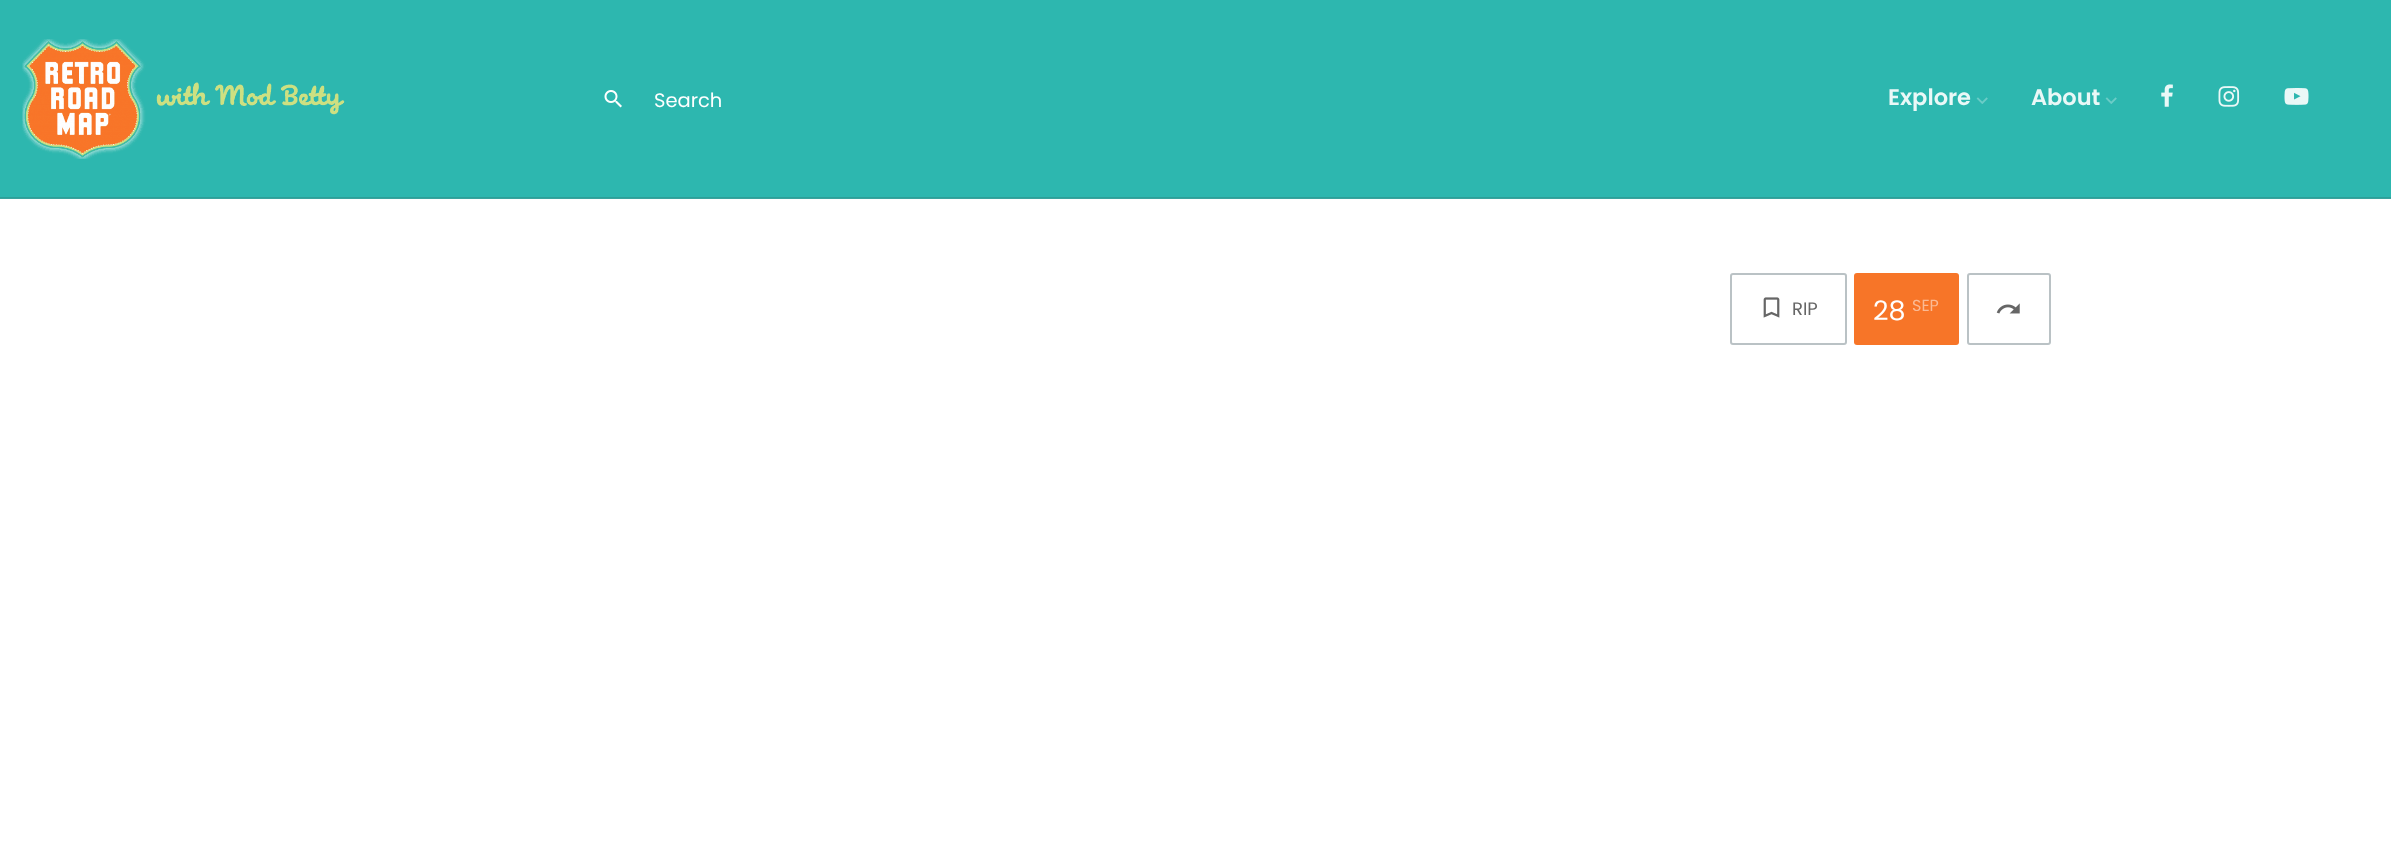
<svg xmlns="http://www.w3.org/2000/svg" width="2391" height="867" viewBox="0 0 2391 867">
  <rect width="100%" height="100%" fill="#fff"/>
  <path d="M0 198h2391v1H0z" fill="#39a49e"/>
  <path d="M0 0h2391v197H0z" fill="#2db7af"/>
  <path d="M0 197h2391v1H0z" fill="#2ca099"/>
  <image x="22" y="39" width="323" height="120" href="img/1.png"/>
  <image x="604" y="90" width="18" height="18" href="img/2.png"/>
  <image x="1976" y="97" width="12" height="7" href="img/3.png"/>
  <image x="2105" y="97" width="12" height="7" href="img/3.png"/>
  <image x="2161" y="84" width="12" height="23" href="img/4.png"/>
  <image x="2218" y="86" width="22" height="21" href="img/5.png"/>
  <image x="2284" y="88" width="25" height="17" href="img/6.png"/>
  <rect x="1731" y="274" width="115" height="70" rx="2" fill="none" stroke="#bac2c5" stroke-width="2"/>
  <image x="1763" y="297" width="17" height="21" href="img/7.png"/>
  <rect x="1854" y="273" width="105" height="72" rx="3" fill="#f77528"/>
  <rect x="1968" y="274" width="82" height="70" rx="2" fill="none" stroke="#bac2c5" stroke-width="2"/>
  <image x="1996" y="303" width="24" height="11" href="img/8.png"/>
  <text x="654" y="107" font-family="Poppins" font-size="19.5" fill="#fff">Search</text>
  <g font-family="Poppins" font-size="22.5" font-weight="600" fill="#eaf8f7">
    <text x="1888" y="105">Explore</text>
    <text x="2031" y="105">About</text>
  </g>
  <text x="1792" y="315" font-family="Poppins" font-size="18" fill="#666">RIP</text>
  <text x="1873" y="320" font-family="Poppins" font-size="27" fill="#fff">28</text>
  <text x="1912" y="311" font-family="Poppins" font-size="16" fill="#fbba94">SEP</text>
</svg>
